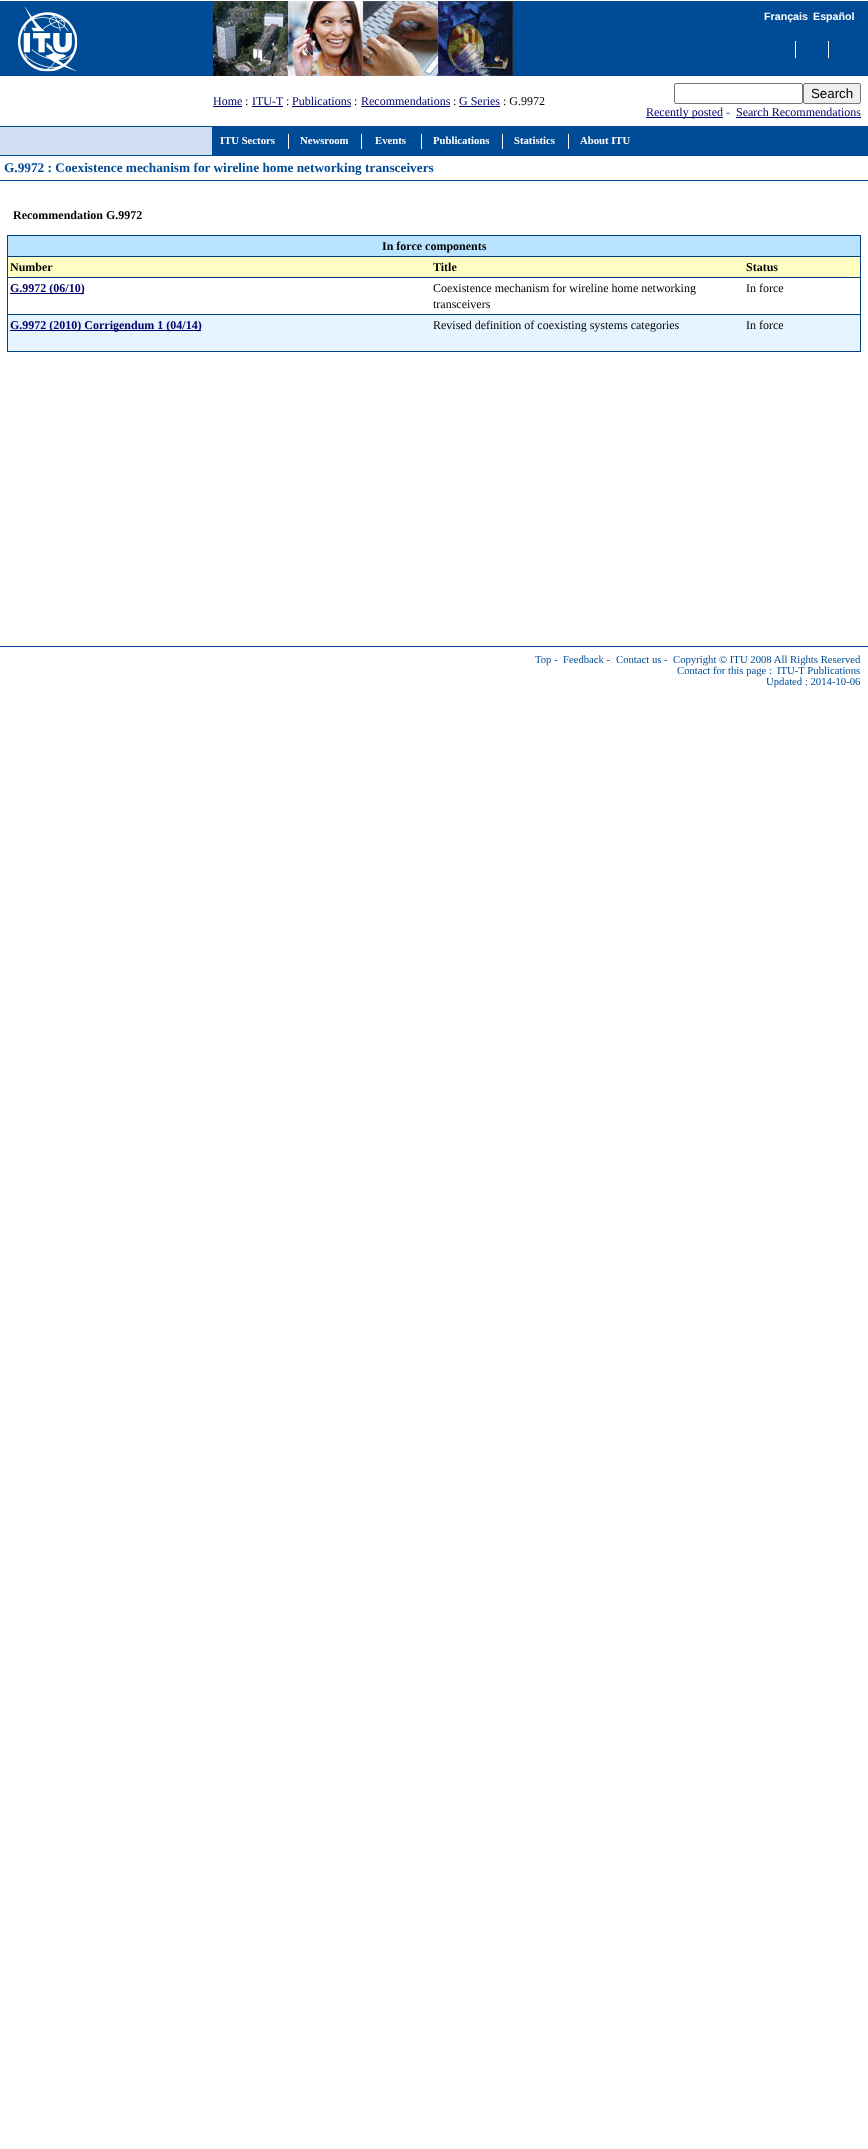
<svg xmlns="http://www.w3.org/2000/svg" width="868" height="2149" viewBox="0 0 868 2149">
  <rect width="100%" height="100%" fill="#fff"/>
  <path d="M0 1h868v75H0z" fill="#004b96"/>
  <image x="18" y="6" width="60" height="66" href="img/1.png"/>
  <image x="213" y="1" width="300" height="75" href="img/2.png"/>
  <path d="M795 41h1v17H795z" fill="#fff"/>
  <path d="M828 41h1v17H828z" fill="#fff"/>
  <path d="M213 106h29v1H213z" fill="#006"/>
  <path d="M252 106h31v1H252z" fill="#006"/>
  <path d="M292 106h59v1H292z" fill="#006"/>
  <path d="M361 106h89v1H361z" fill="#006"/>
  <path d="M459 106h41v1H459z" fill="#006"/>
  <rect x="674.5" y="83.5" width="128" height="20" rx="1.5" fill="none" stroke="#767676"/>
  <rect x="803.5" y="83.5" width="57" height="20" rx="1.5" fill="#efefef" stroke="#767676"/>
  <path d="M646 117h77v1H646z" fill="#006"/>
  <path d="M736 117h125v1H736z" fill="#006"/>
  <path d="M0 127h212v28H0z" fill="#cfdef3"/>
  <path d="M0 126h213v1H0z" fill="#004b96"/>
  <path d="M212 126h656v30H212z" fill="#004b96"/>
  <path d="M0 155h213v1H0z" fill="#004b96"/>
  <path d="M0 180h868v1H0z" fill="#004b96"/>
  <path d="M0 646h868v1H0z" fill="#004b96"/>
  <path d="M7 235h854v117H7z" fill="#004080"/>
  <path d="M8 236h852v20H8z" fill="#b9e3ff"/>
  <path d="M8 257h852v20H8z" fill="#ffffc4"/>
  <path d="M8 278h852v36H8z" fill="#fff"/>
  <path d="M10 293h74v1H10z" fill="#006"/>
  <path d="M8 315h852v36H8z" fill="#e6f4ff"/>
  <path d="M10 330h191v1H10z" fill="#006"/>
  <path d="M288 134h1v15H288z" fill="#fff"/>
  <path d="M361 134h1v15H361z" fill="#fff"/>
  <path d="M421 134h1v15H421z" fill="#fff"/>
  <path d="M502 134h1v15H502z" fill="#fff"/>
  <path d="M568 134h1v15H568z" fill="#fff"/>
  <g font-family="Liberation Sans" font-size="10.7" font-weight="bold" fill="#fff">
    <text x="764" y="20">Français</text>
    <text x="813" y="20">Español</text>
  </g>
  <text x="213" y="105" font-family="Liberation Serif" font-size="12" fill="#006">Home</text>
  <text x="245" y="105" font-family="Liberation Serif" font-size="12" fill="#000">:</text>
  <text x="252" y="105" font-family="Liberation Serif" font-size="12" fill="#006">ITU-T</text>
  <text x="286" y="105" font-family="Liberation Serif" font-size="12" fill="#000">:</text>
  <text x="292" y="105" font-family="Liberation Serif" font-size="12" fill="#006">Publications</text>
  <text x="354" y="105" font-family="Liberation Serif" font-size="12" fill="#000">:</text>
  <text x="361" y="105" font-family="Liberation Serif" font-size="12" fill="#006">Recommendations</text>
  <text x="453" y="105" font-family="Liberation Serif" font-size="12" fill="#000">:</text>
  <text x="459" y="105" font-family="Liberation Serif" font-size="12" fill="#006">G Series</text>
  <text x="503" y="105" font-family="Liberation Serif" font-size="12" fill="#000">: G.9972</text>
  <text x="811" y="98" font-family="Liberation Sans" font-size="13.3" fill="#000">Search</text>
  <text x="646" y="116" font-family="Liberation Serif" font-size="12" fill="#006">Recently posted</text>
  <text x="726" y="116" font-family="Liberation Serif" font-size="12" fill="#004b96">-</text>
  <text x="736" y="116" font-family="Liberation Serif" font-size="12" fill="#006">Search Recommendations</text>
  <text x="4" y="172" font-family="Liberation Serif" font-size="13.3" font-weight="bold" fill="#004b96">G.9972 : Coexistence mechanism for wireline home networking transceivers</text>
  <g font-family="Liberation Serif" font-size="12" font-weight="bold" fill="#000">
    <text x="13" y="219">Recommendation G.9972</text>
    <text x="382" y="250">In force components</text>
    <text x="10" y="271">Number</text>
    <text x="433" y="271">Title</text>
    <text x="746" y="271">Status</text>
  </g>
  <text x="10" y="292" font-family="Liberation Serif" font-size="12" font-weight="bold" fill="#006">G.9972 (06/10)</text>
  <g font-family="Liberation Serif" font-size="12" fill="#000">
    <text x="433" y="292">Coexistence mechanism for wireline home networking</text>
    <text x="433" y="308">transceivers</text>
    <text x="746" y="292">In force</text>
  </g>
  <text x="10" y="329" font-family="Liberation Serif" font-size="12" font-weight="bold" fill="#006">G.9972 (2010) Corrigendum 1 (04/14)</text>
  <g font-family="Liberation Serif" font-size="12" fill="#000">
    <text x="433" y="329">Revised definition of coexisting systems categories</text>
    <text x="746" y="329">In force</text>
  </g>
  <g font-family="Liberation Serif" font-size="10.7" fill="#004b96">
    <text x="535" y="663">Top -</text>
    <text x="563" y="663">Feedback -</text>
    <text x="616" y="663">Contact us -</text>
    <text x="673" y="663">Copyright © ITU 2008 All Rights Reserved</text>
    <text x="677" y="674">Contact for this page :</text>
    <text x="777" y="674">ITU-T Publications</text>
    <text x="766" y="685">Updated : 2014-10-06</text>
  </g>
  <g font-family="Liberation Serif" font-size="10.7" font-weight="bold" fill="#fff">
    <text x="220" y="144">ITU Sectors</text>
    <text x="300" y="144">Newsroom</text>
    <text x="375" y="144">Events</text>
    <text x="433" y="144">Publications</text>
    <text x="514" y="144">Statistics</text>
    <text x="580" y="144">About ITU</text>
  </g>
</svg>
